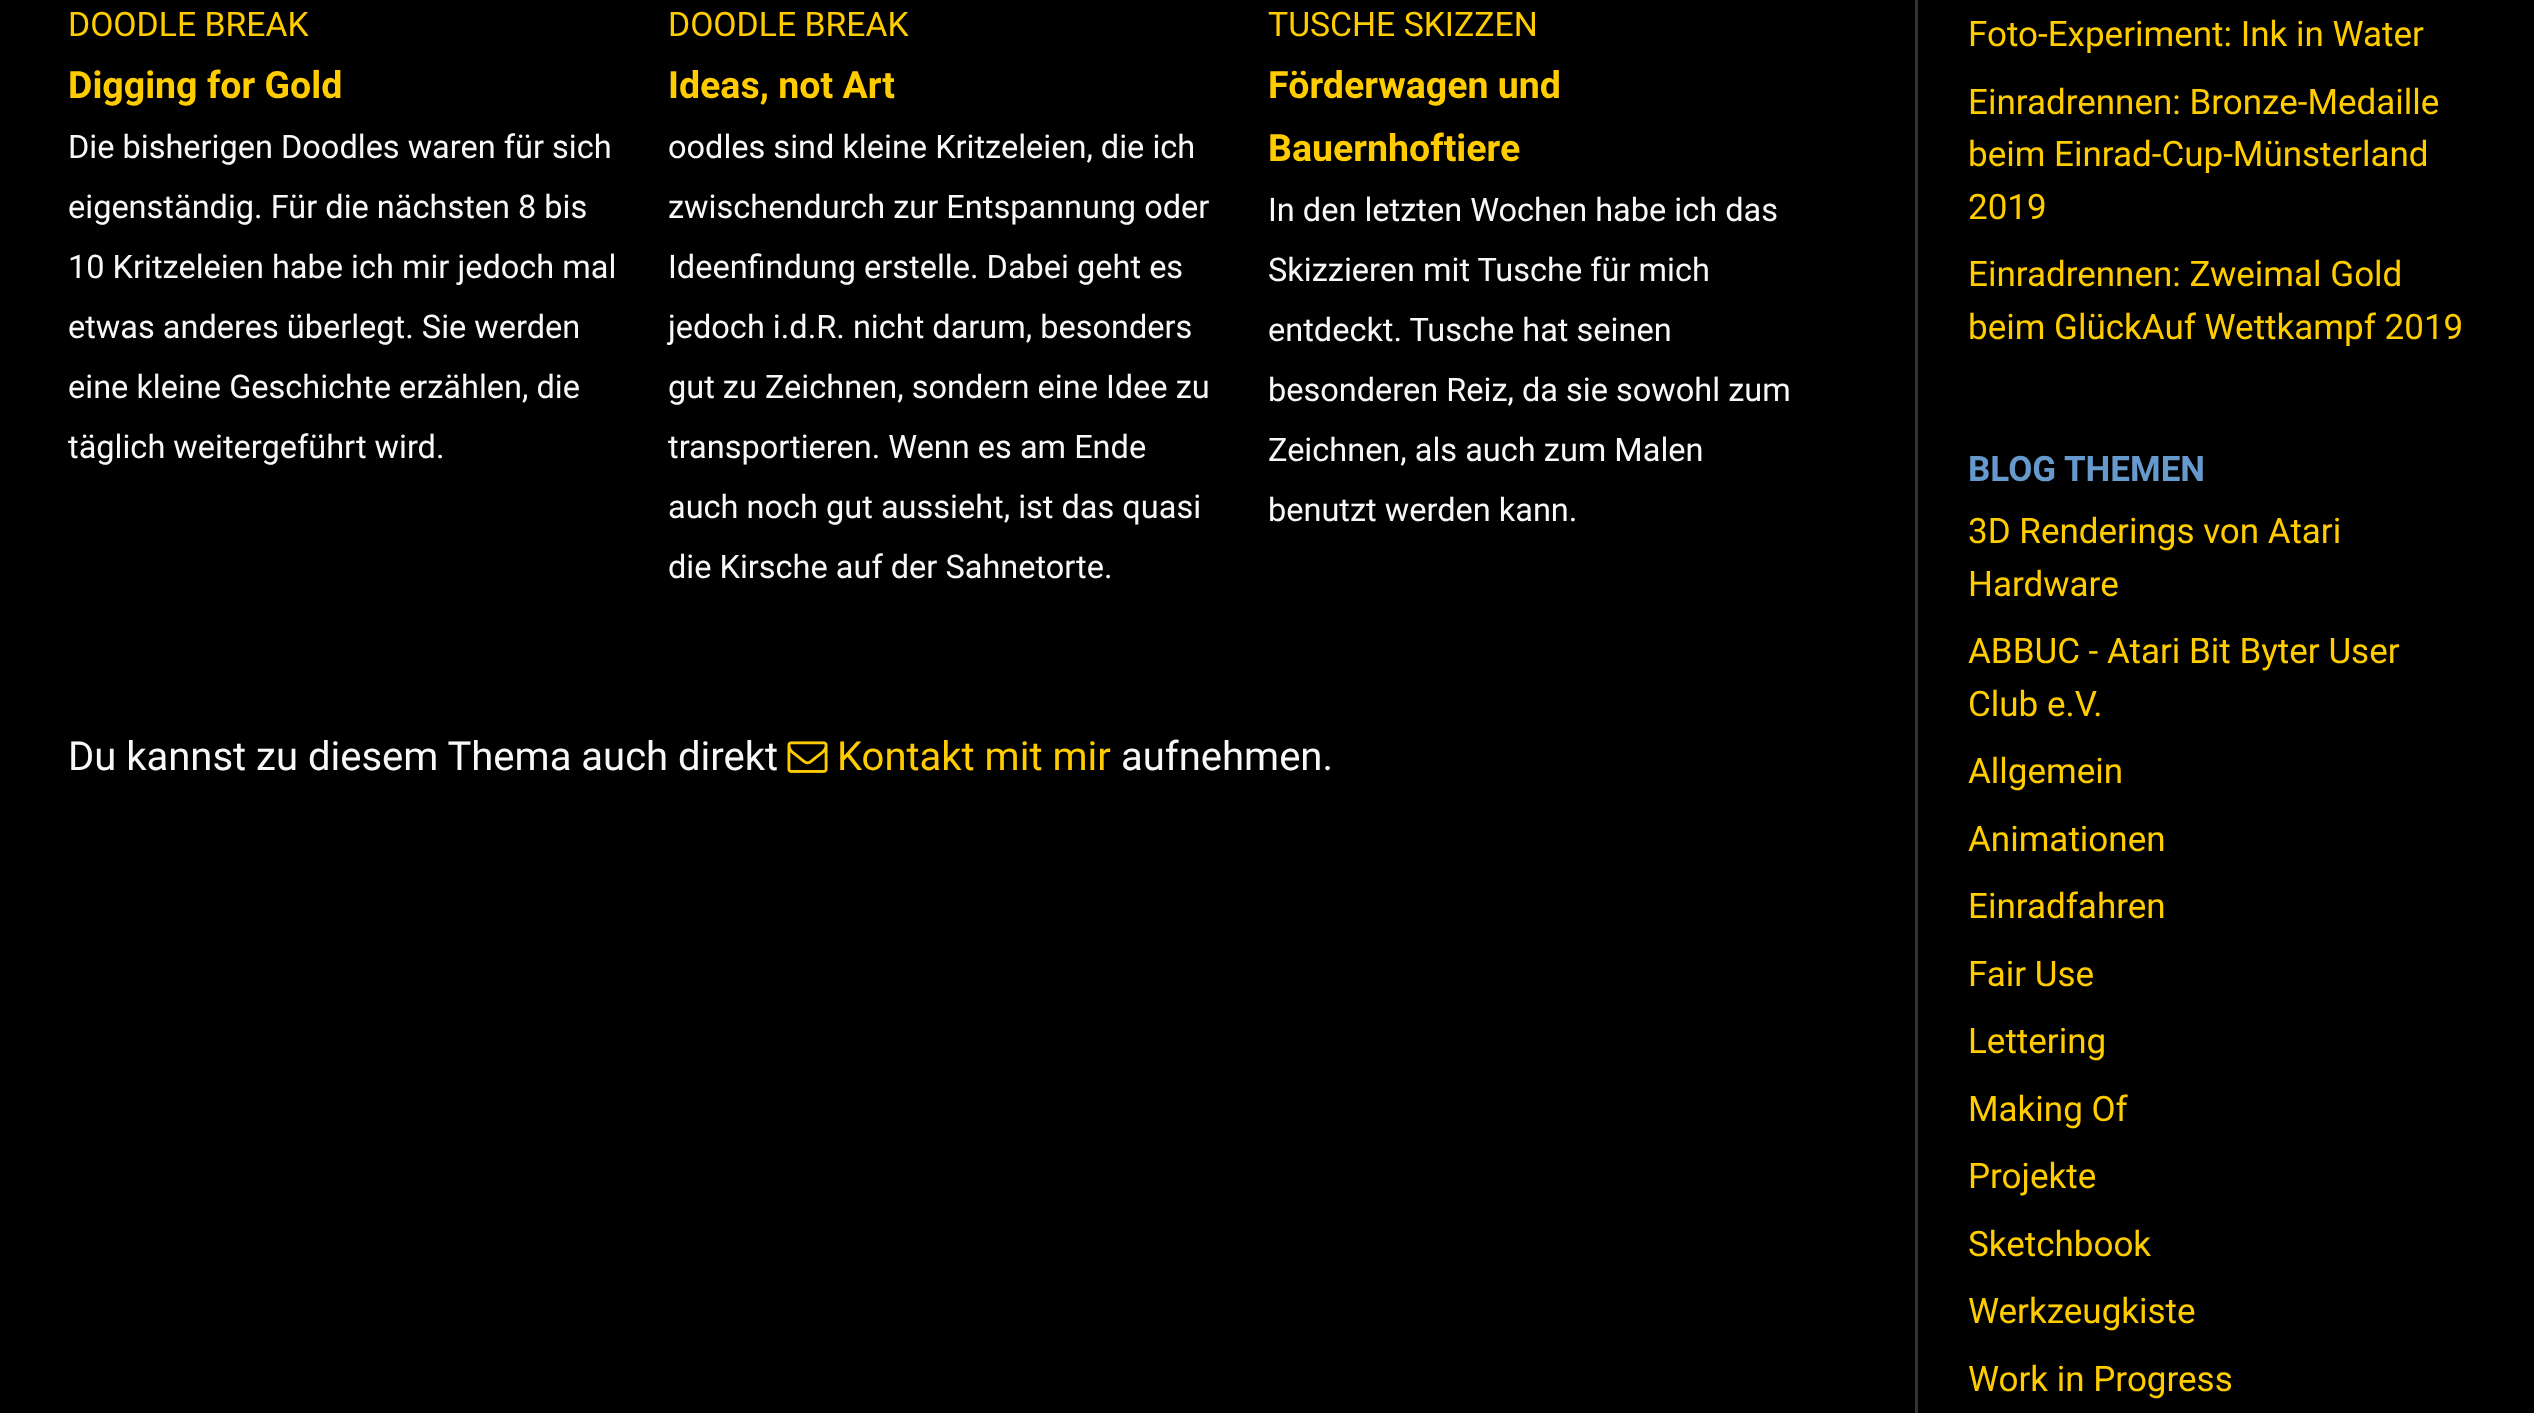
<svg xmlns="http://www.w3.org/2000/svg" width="2534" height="1413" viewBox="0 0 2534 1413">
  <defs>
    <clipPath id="clip1"><path d="M68 0h2400v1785H68z"/></clipPath>
  </defs>
  <rect width="100%" height="100%" fill="#000"/>
  <image x="787" y="741" width="41" height="32" href="img/1.png"/>
  <path d="M1915 0h3v1413H1915z" fill="#333"/>
  <text x="68" y="36" font-family="Roboto" font-size="33.75" fill="#fc0">DOODLE BREAK</text>
  <text x="68" y="98" font-family="Roboto" font-size="37.5" font-weight="bold" fill="#fc0">Digging for Gold</text>
  <g font-family="Roboto" font-size="32.5" fill="#f8f8f8">
    <text x="68" y="158">Die bisherigen Doodles waren für sich</text>
    <text x="68" y="218">eigenständig. Für die nächsten 8 bis</text>
    <text x="68" y="278">10 Kritzeleien habe ich mir jedoch mal</text>
    <text x="68" y="338">etwas anderes überlegt. Sie werden</text>
    <text x="68" y="398">eine kleine Geschichte erzählen, die</text>
  </g>
  <g clip-path="url(#clip1)">
    <text x="68" y="458" font-family="Roboto" font-size="32.5" fill="#f8f8f8">täglich weitergeführt wird.</text>
  </g>
  <text x="668" y="36" font-family="Roboto" font-size="33.75" fill="#fc0">DOODLE BREAK</text>
  <text x="668" y="98" font-family="Roboto" font-size="37.5" font-weight="bold" fill="#fc0">Ideas, not Art</text>
  <g font-family="Roboto" font-size="32.5" fill="#f8f8f8">
    <text x="668" y="158">oodles sind kleine Kritzeleien, die ich</text>
    <text x="668" y="218">zwischendurch zur Entspannung oder</text>
    <text x="668" y="278">Ideenfindung erstelle. Dabei geht es</text>
    <text x="668" y="338">jedoch i.d.R. nicht darum, besonders</text>
    <text x="668" y="398">gut zu Zeichnen, sondern eine Idee zu</text>
    <text x="668" y="458">transportieren. Wenn es am Ende</text>
    <text x="668" y="518">auch noch gut aussieht, ist das quasi</text>
    <text x="668" y="578">die Kirsche auf der Sahnetorte.</text>
  </g>
  <text x="1268" y="36" font-family="Roboto" font-size="33.75" fill="#fc0">TUSCHE SKIZZEN</text>
  <g font-family="Roboto" font-size="37.5" font-weight="bold" fill="#fc0">
    <text x="1268" y="98">Förderwagen und</text>
    <text x="1268" y="161">Bauernhoftiere</text>
  </g>
  <g font-family="Roboto" font-size="32.5" fill="#f8f8f8">
    <text x="1268" y="221">In den letzten Wochen habe ich das</text>
    <text x="1268" y="281">Skizzieren mit Tusche für mich</text>
    <text x="1268" y="341">entdeckt. Tusche hat seinen</text>
    <text x="1268" y="401">besonderen Reiz, da sie sowohl zum</text>
    <text x="1268" y="461">Zeichnen, als auch zum Malen</text>
    <text x="1268" y="521">benutzt werden kann.</text>
  </g>
  <text x="68" y="770" font-family="Roboto" font-size="40" fill="#f8f8f8">Du kannst zu diesem Thema auch direkt</text>
  <text x="837" y="770" font-family="Roboto" font-size="40" fill="#fc0">Kontakt mit mir</text>
  <text x="1121" y="770" font-family="Roboto" font-size="40" fill="#f8f8f8">aufnehmen.</text>
  <g font-family="Roboto" font-size="35" fill="#fc0">
    <text x="1968" y="46">Foto-Experiment: Ink in Water</text>
    <text x="1968" y="114">Einradrennen: Bronze-Medaille</text>
    <text x="1968" y="166">beim Einrad-Cup-Münsterland</text>
    <text x="1968" y="219">2019</text>
    <text x="1968" y="286">Einradrennen: Zweimal Gold</text>
    <text x="1968" y="339">beim GlückAuf Wettkampf 2019</text>
  </g>
  <text x="1968" y="481" font-family="Roboto" font-size="35" font-weight="bold" fill="#69c">BLOG THEMEN</text>
  <g font-family="Roboto" font-size="35" fill="#fc0">
    <text x="1968" y="543">3D Renderings von Atari</text>
    <text x="1968" y="596">Hardware</text>
    <text x="1968" y="663">ABBUC - Atari Bit Byter User</text>
    <text x="1968" y="716">Club e.V.</text>
    <text x="1968" y="783">Allgemein</text>
    <text x="1968" y="851">Animationen</text>
    <text x="1968" y="918">Einradfahren</text>
    <text x="1968" y="986">Fair Use</text>
    <text x="1968" y="1053">Lettering</text>
    <text x="1968" y="1121">Making Of</text>
    <text x="1968" y="1188">Projekte</text>
    <text x="1968" y="1256">Sketchbook</text>
    <text x="1968" y="1323">Werkzeugkiste</text>
    <text x="1968" y="1391">Work in Progress</text>
  </g>
</svg>
